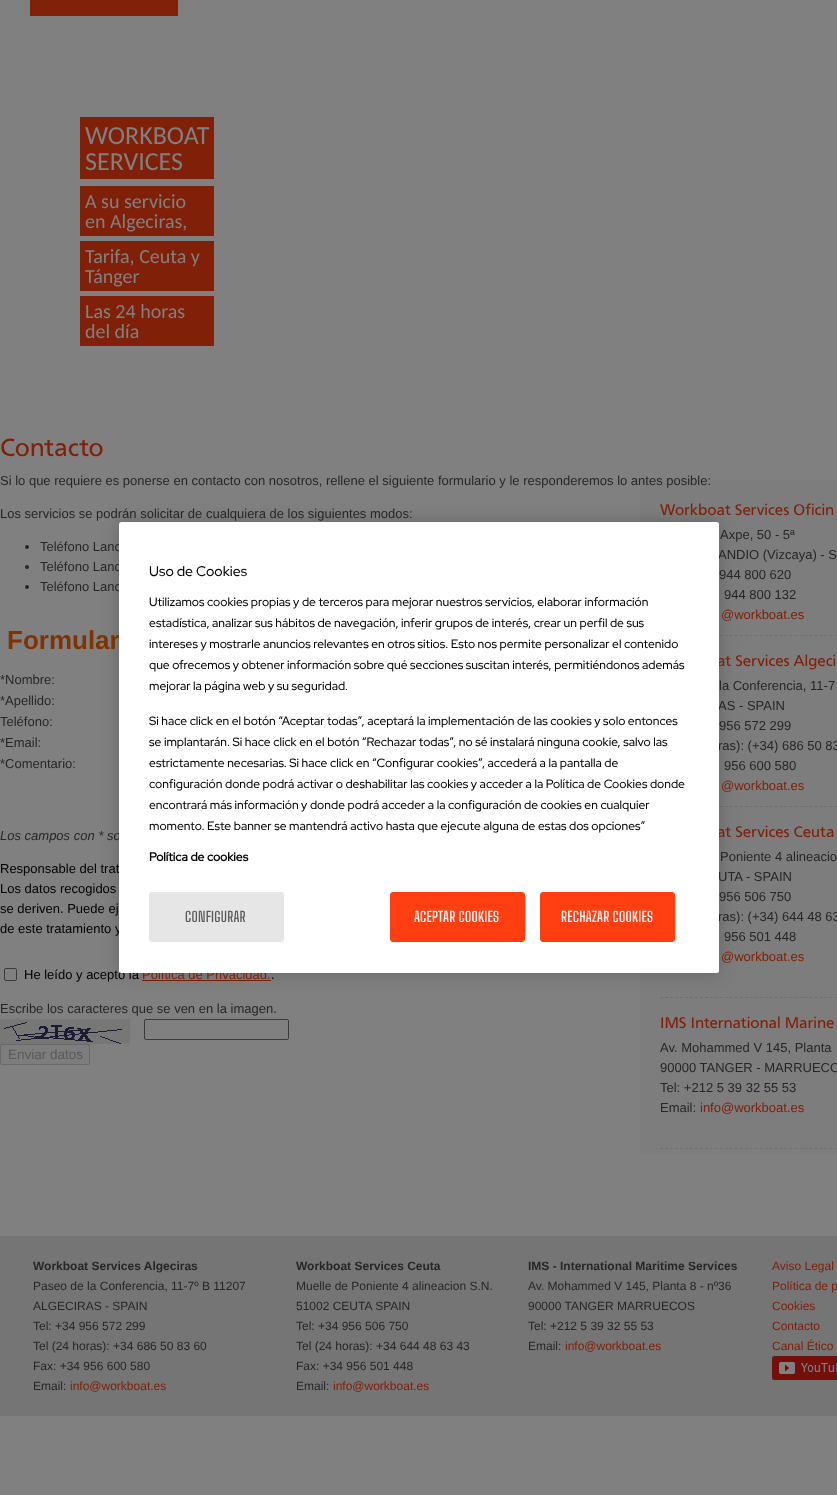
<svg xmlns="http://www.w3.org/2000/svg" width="837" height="1495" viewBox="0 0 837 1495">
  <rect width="100%" height="100%" fill="#808080"/>
  <path d="M30 0h148v16H30z" fill="#802109"/>
  <path d="M80 117h134v62H80z" fill="#802009"/>
  <path d="M80 186h134v50H80z" fill="#802009"/>
  <path d="M80 241h134v50H80z" fill="#802009"/>
  <path d="M80 296h134v50H80z" fill="#802009"/>
  <path d="M640 480h197v674H640z" fill="#7d7d7d"/>
  <path d="M660 635.5H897" fill="none" stroke="#6f6f6f" stroke-dasharray="3 1.98"/>
  <path d="M660 806.5H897" fill="none" stroke="#6f6f6f" stroke-dasharray="3 1.98"/>
  <path d="M660 997.5H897" fill="none" stroke="#6f6f6f" stroke-dasharray="3 1.98"/>
  <path d="M660 1148.5H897" fill="none" stroke="#6f6f6f" stroke-dasharray="3 1.98"/>
  <circle cx="27" cy="547" r="2" fill="#272727"/>
  <circle cx="27" cy="567" r="2" fill="#272727"/>
  <circle cx="27" cy="587" r="2" fill="#272727"/>
  <rect x="4.5" y="968.5" width="12" height="12" rx="1.5" fill="none" stroke="#3b3b3b"/>
  <path d="M142 980h129v1H142z" fill="#802009"/>
  <image x="0" y="1019" width="130" height="25" href="img/1.png"/>
  <rect x="144.5" y="1019.5" width="144" height="20" rx="1.5" fill="none" stroke="#3b3b3b"/>
  <rect x="0.5" y="1044.5" width="89" height="20" rx="1.5" fill="#7d7d7d" stroke="#696969"/>
  <path d="M0 1236h837v180H0z" fill="#757575"/>
  <image x="772" y="1356" width="65" height="24" href="img/2.png"/>
  <rect x="119" y="522" width="600" height="451" rx="2.5" fill="#00000033" filter="blur(9px)"/>
  <g font-family="Carlito" font-size="26" fill="#808080">
    <text x="85" y="144">WORKBOAT</text>
    <text x="85" y="170">SERVICES</text>
  </g>
  <g font-family="Carlito" font-size="20" fill="#808080">
    <text x="85" y="208">A su servicio</text>
    <text x="85" y="228">en Algeciras,</text>
    <text x="85" y="263">Tarifa, Ceuta y</text>
    <text x="85" y="283">Tánger</text>
    <text x="85" y="318">Las 24 horas</text>
    <text x="85" y="338">del día</text>
  </g>
  <text x="0" y="456" font-family="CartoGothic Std" font-size="26" fill="#802009">Contacto</text>
  <g font-family="Liberation Sans" font-size="13" fill="#272727">
    <text x="0" y="485">Si lo que requiere es ponerse en contacto con nosotros, rellene el siguiente formulario y le responderemos lo antes posible:</text>
    <text x="0" y="518">Los servicios se podrán solicitar de cualquiera de los siguientes modos:</text>
  </g>
  <text x="660" y="515" font-family="CartoGothic Std" font-size="16" fill="#802009">Workboat Services Oficin</text>
  <g font-family="Liberation Sans" font-size="13" fill="#272727">
    <text x="720" y="539">Axpe, 50 - 5ª</text>
    <text x="718" y="559">ANDIO (Vizcaya) - S</text>
    <text x="719" y="579">944 800 620</text>
    <text x="724" y="599">944 800 132</text>
  </g>
  <text x="721" y="619" font-family="Liberation Sans" font-size="13" fill="#802009">@workboat.es</text>
  <text x="717" y="666" font-family="CartoGothic Std" font-size="16" fill="#802009">at Services Algeci</text>
  <g font-family="Liberation Sans" font-size="13" fill="#272727">
    <text x="719" y="690">la Conferencia, 11-7</text>
    <text x="718" y="710">AS - SPAIN</text>
    <text x="719" y="730">956 572 299</text>
    <text x="718" y="750">ras): (+34) 686 50 83</text>
    <text x="724" y="770">956 600 580</text>
  </g>
  <text x="721" y="790" font-family="Liberation Sans" font-size="13" fill="#802009">@workboat.es</text>
  <text x="717" y="837" font-family="CartoGothic Std" font-size="16" fill="#802009">at Services Ceuta</text>
  <g font-family="Liberation Sans" font-size="13" fill="#272727">
    <text x="720" y="861">Poniente 4 alineacio</text>
    <text x="718" y="881">UTA - SPAIN</text>
    <text x="719" y="901">956 506 750</text>
    <text x="718" y="921">ras): (+34) 644 48 63</text>
    <text x="724" y="941">956 501 448</text>
  </g>
  <text x="721" y="961" font-family="Liberation Sans" font-size="13" fill="#802009">@workboat.es</text>
  <text x="660" y="1028" font-family="CartoGothic Std" font-size="16" fill="#802009">IMS International Marine</text>
  <g font-family="Liberation Sans" font-size="13" fill="#272727">
    <text x="660" y="1052">Av. Mohammed V 145, Planta</text>
    <text x="660" y="1072">90000 TANGER - MARRUECO</text>
    <text x="660" y="1092">Tel: +212 5 39 32 55 53</text>
    <text x="660" y="1112">Email:</text>
  </g>
  <text x="700" y="1112" font-family="Liberation Sans" font-size="13" fill="#802009">info@workboat.es</text>
  <g font-family="Liberation Sans" font-size="13" fill="#272727">
    <text x="40" y="551">Teléfono Lanc</text>
    <text x="40" y="571">Teléfono Lanc</text>
    <text x="40" y="591">Teléfono Lanc</text>
  </g>
  <text x="7" y="649" font-family="Liberation Sans" font-size="26" font-weight="bold" fill="#803300">Formular</text>
  <g font-family="Liberation Sans" font-size="13" fill="#272727">
    <text x="0" y="684">*Nombre:</text>
    <text x="0" y="705">*Apellido:</text>
    <text x="0" y="726">Teléfono:</text>
    <text x="0" y="747">*Email:</text>
    <text x="0" y="768">*Comentario:</text>
  </g>
  <text x="0" y="840" font-family="Liberation Sans" font-size="13" font-style="italic" fill="#272727">Los campos con * so</text>
  <g font-family="Liberation Sans" font-size="13" fill="#000">
    <text x="0" y="873">Responsable del trat</text>
    <text x="0" y="893">Los datos recogidos</text>
    <text x="0" y="913">se deriven. Puede ej</text>
    <text x="0" y="933">de este tratamiento y</text>
    <text x="24" y="979">He leído y acepto la</text>
  </g>
  <text x="142" y="979" font-family="Liberation Sans" font-size="13" fill="#802009">Política de Privacidad.</text>
  <text x="271" y="979" font-family="Liberation Sans" font-size="13" fill="#000">.</text>
  <text x="0" y="1013" font-family="Liberation Sans" font-size="13" fill="#272727">Escribe los caracteres que se ven en la imagen.</text>
  <text x="8" y="1059" font-family="Liberation Sans" font-size="13.5" fill="#5a5a5a">Enviar datos</text>
  <text x="33" y="1270" font-family="Liberation Sans" font-size="12" font-weight="bold" fill="#272727">Workboat Services Algeciras</text>
  <g font-family="Liberation Sans" font-size="12" fill="#272727">
    <text x="33" y="1290">Paseo de la Conferencia, 11-7º B 11207</text>
    <text x="33" y="1310">ALGECIRAS - SPAIN</text>
    <text x="33" y="1330">Tel: +34 956 572 299</text>
    <text x="33" y="1350">Tel (24 horas): +34 686 50 83 60</text>
    <text x="33" y="1370">Fax: +34 956 600 580</text>
    <text x="33" y="1390">Email:</text>
  </g>
  <text x="70" y="1390" font-family="Liberation Sans" font-size="12" fill="#802009">info@workboat.es</text>
  <text x="296" y="1270" font-family="Liberation Sans" font-size="12" font-weight="bold" fill="#272727">Workboat Services Ceuta</text>
  <g font-family="Liberation Sans" font-size="12" fill="#272727">
    <text x="296" y="1290">Muelle de Poniente 4 alineacion S.N.</text>
    <text x="296" y="1310">51002 CEUTA SPAIN</text>
    <text x="296" y="1330">Tel: +34 956 506 750</text>
    <text x="296" y="1350">Tel (24 horas): +34 644 48 63 43</text>
    <text x="296" y="1370">Fax: +34 956 501 448</text>
    <text x="296" y="1390">Email:</text>
  </g>
  <text x="333" y="1390" font-family="Liberation Sans" font-size="12" fill="#802009">info@workboat.es</text>
  <text x="528" y="1270" font-family="Liberation Sans" font-size="12" font-weight="bold" fill="#272727">IMS - International Maritime Services</text>
  <g font-family="Liberation Sans" font-size="12" fill="#272727">
    <text x="528" y="1290">Av. Mohammed V 145, Planta 8 - nº36</text>
    <text x="528" y="1310">90000 TANGER MARRUECOS</text>
    <text x="528" y="1330">Tel: +212 5 39 32 55 53</text>
    <text x="528" y="1350">Email:</text>
  </g>
  <g font-family="Liberation Sans" font-size="12" fill="#802009">
    <text x="565" y="1350">info@workboat.es</text>
    <text x="772" y="1270">Aviso Legal</text>
    <text x="772" y="1290">Política de p</text>
    <text x="772" y="1310">Cookies</text>
    <text x="772" y="1330">Contacto</text>
    <text x="772" y="1350">Canal Ético</text>
  </g>
  <rect x="119" y="522" width="600" height="451" rx="2.5" fill="#fff"/>
  <text x="149" y="576" font-family="Red Hat Display" font-size="14" font-weight="500" fill="#000">Uso de Cookies</text>
  <g font-family="Red Hat Display" font-size="12" font-weight="500" fill="#000">
    <text x="149" y="606">Utilizamos cookies propias y de terceros para mejorar nuestros servicios, elaborar información</text>
    <text x="149" y="627">estadística, analizar sus hábitos de navegación, inferir grupos de interés, crear un perfil de sus</text>
    <text x="149" y="648">intereses y mostrarle anuncios relevantes en otros sitios. Esto nos permite personalizar el contenido</text>
    <text x="149" y="669">que ofrecemos y obtener información sobre qué secciones suscitan interés, permitiéndonos además</text>
    <text x="149" y="690">mejorar la página web y su seguridad.</text>
    <text x="149" y="725">Si hace click en el botón “Aceptar todas”, aceptará la implementación de las cookies y solo entonces</text>
    <text x="149" y="746">se implantarán. Si hace click en el botón “Rechazar todas”, no sé instalará ninguna cookie, salvo las</text>
    <text x="149" y="767">estrictamente necesarias. Si hace click en “Configurar cookies”, accederá a la pantalla de</text>
    <text x="149" y="788">configuración donde podrá activar o deshabilitar las cookies y acceder a la Política de Cookies donde</text>
    <text x="149" y="809">encontrará más información y donde podrá acceder a la configuración de cookies en cualquier</text>
    <text x="149" y="830">momento. Este banner se mantendrá activo hasta que ejecute alguna de estas dos opciones”</text>
  </g>
  <text x="149" y="861" font-family="Red Hat Display" font-size="12" font-weight="bold" fill="#000">Política de cookies</text>
  <rect x="149" y="892" width="135" height="50" rx="3" fill="#e6e6e6"/>
  <text x="185" y="922" font-family="Big Shoulders Text" font-size="14" font-weight="100" letter-spacing="0.25" fill="#5a5a5a">CONFIGURAR</text>
  <rect x="390.5" y="892.5" width="134" height="49" rx="2.5" fill="#ff3f12" stroke="#ff3f12"/>
  <text x="414" y="922" font-family="Big Shoulders Text" font-size="14" font-weight="100" letter-spacing="0.25" fill="#fff">ACEPTAR COOKIES</text>
  <rect x="540.5" y="892.5" width="134" height="49" rx="2.5" fill="#ff3f12" stroke="#ff3f12"/>
  <text x="561" y="922" font-family="Big Shoulders Text" font-size="14" font-weight="100" letter-spacing="0.25" fill="#fff">RECHAZAR COOKIES</text>
</svg>
